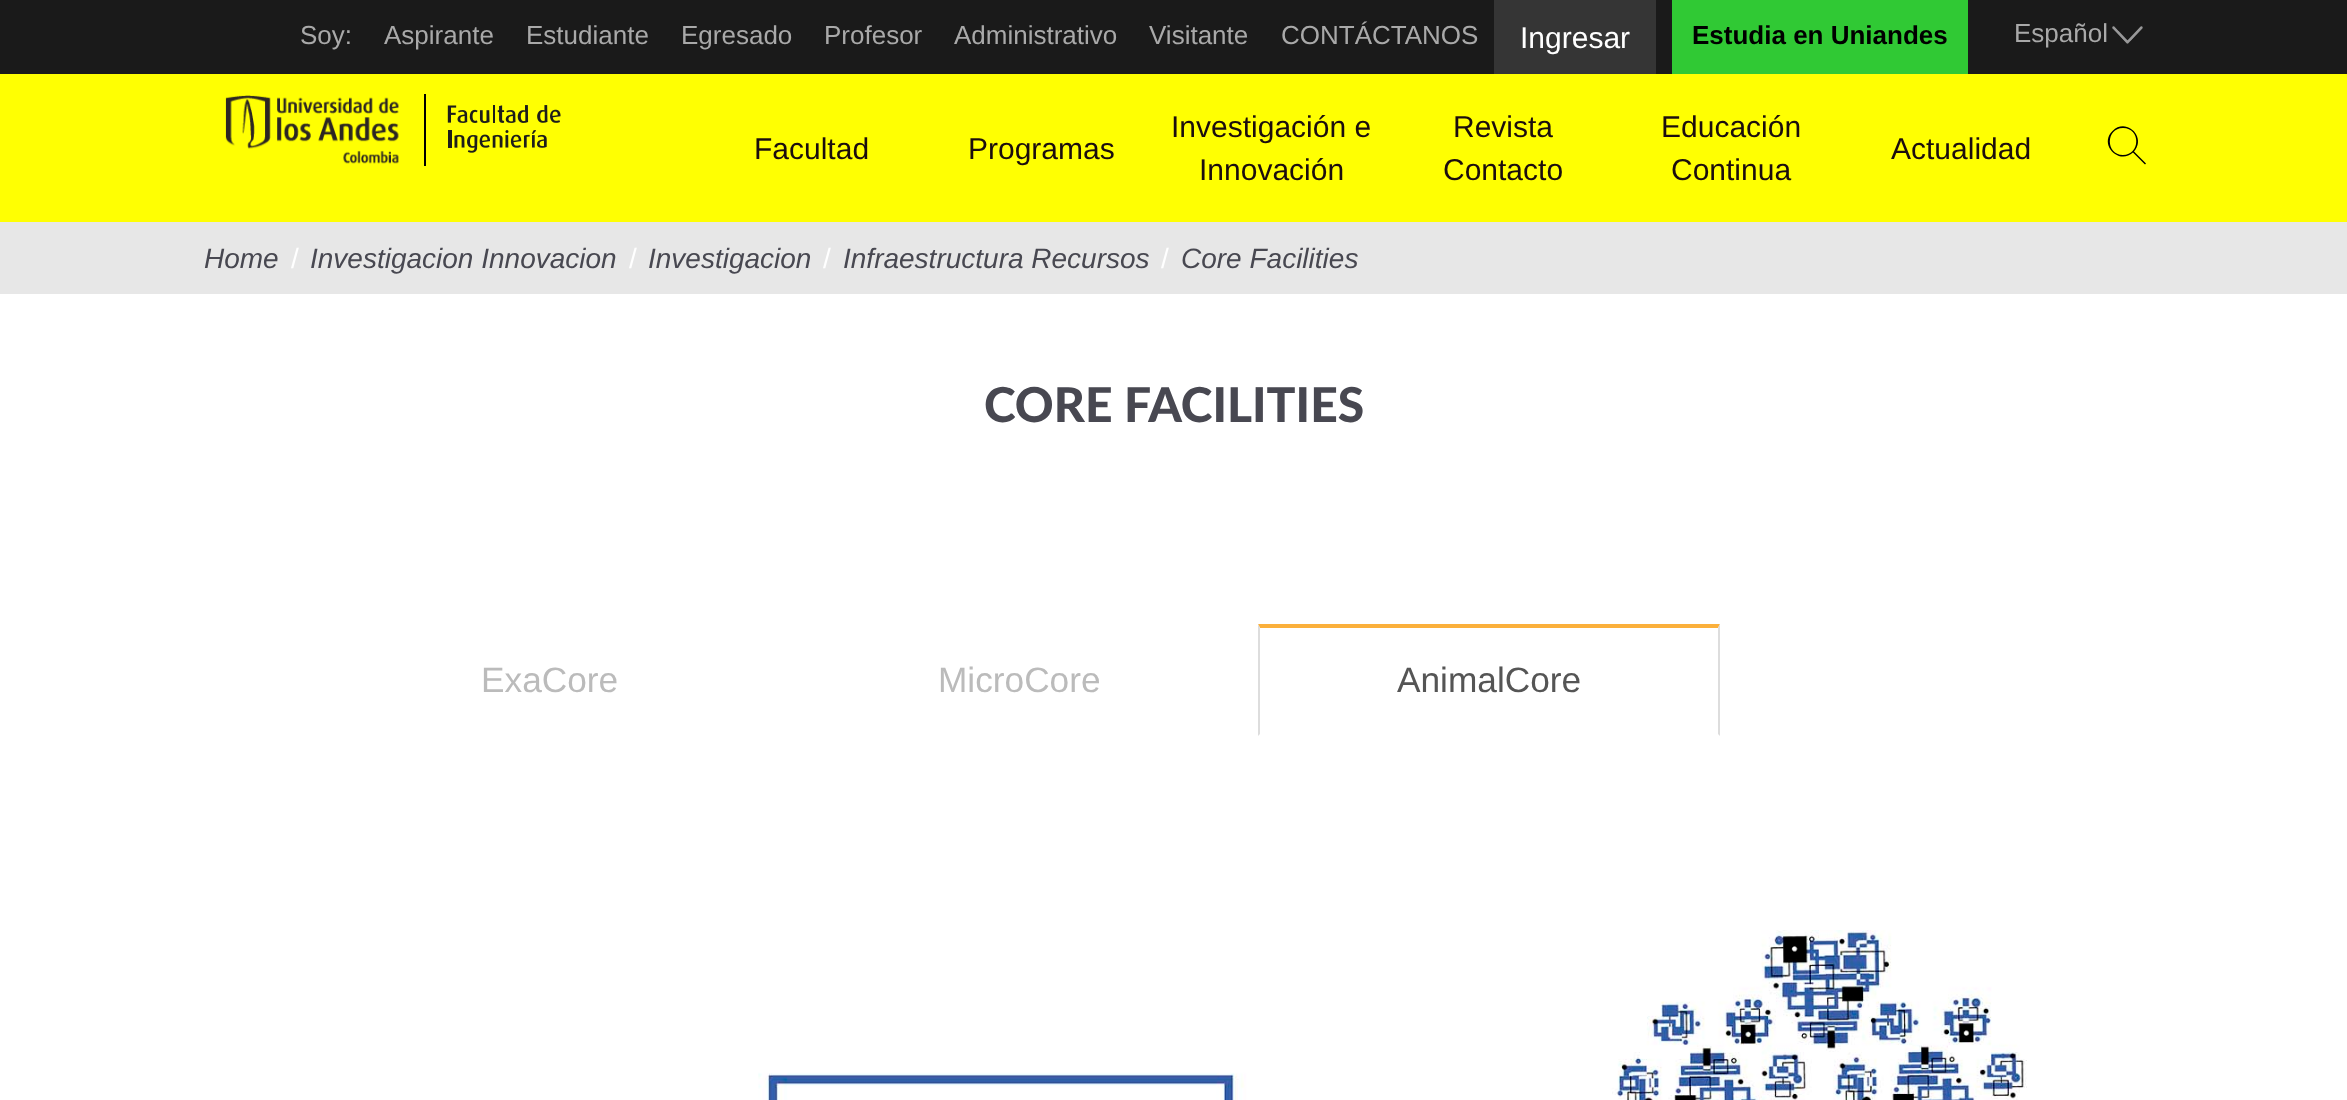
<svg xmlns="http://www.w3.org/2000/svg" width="2347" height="1100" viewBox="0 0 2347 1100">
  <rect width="100%" height="100%" fill="#fff"/>
  <path d="M0 0h2347v74H0z" fill="#1a1a1a"/>
  <path d="M1494 0h162v74H1494z" fill="#353535"/>
  <path d="M1672 0h296v74H1672z" fill="#30c934"/>
  <image x="2112" y="26" width="31" height="18" href="img/1.png"/>
  <path d="M0 74h2347v148H0z" fill="#ffff02"/>
  <path d="M424 94h2v72H424z" fill="#000"/>
  <image x="225" y="95" width="174" height="69" href="img/2.png"/>
  <image x="447" y="105" width="114" height="48" href="img/3.png"/>
  <path d="M2133 152.5L2145 164.5L2146 163.5L2134 151.5C2147 137 2126 117 2112.5 131C2098.5 144.5 2119 165.5 2133 152.5ZM2123 128C2141 128 2140.5 155 2123 155C2105.5 155 2105.5 128 2123 128Z" fill="#000"/>
  <path d="M0 222h2347v72H0z" fill="#e7e7e7"/>
  <path d="M1258 624H1720L1718 628H1260Z" fill="#fbb03b"/>
  <path d="M1720 624V736L1718 734V628Z" fill="#ddd"/>
  <path d="M1258 736V624L1260 628V734Z" fill="#ddd"/>
  <image x="758" y="930" width="1269" height="170" href="img/4.png"/>
  <g font-family="Liberation Sans" font-size="26" fill="#a9a9a9">
    <text x="300" y="44">Soy:</text>
    <text x="384" y="44">Aspirante</text>
    <text x="526" y="44">Estudiante</text>
    <text x="681" y="44">Egresado</text>
    <text x="824" y="44">Profesor</text>
    <text x="954" y="44">Administrativo</text>
    <text x="1149" y="44">Visitante</text>
    <text x="1281" y="44">CONTÁCTANOS</text>
  </g>
  <text x="1520" y="48" font-family="Liberation Sans" font-size="30" fill="#fff">Ingresar</text>
  <text x="1692" y="44" font-family="Liberation Sans" font-size="26" font-weight="bold" fill="#000">Estudia en Uniandes</text>
  <text x="2014" y="42" font-family="Liberation Sans" font-size="26" fill="#a9a9a9">Español</text>
  <g font-family="Liberation Sans" font-size="30" fill="#1b0d0e">
    <text x="754" y="159">Facultad</text>
    <text x="968" y="159">Programas</text>
    <text x="1171" y="137">Investigación e</text>
    <text x="1199" y="180">Innovación</text>
    <text x="1453" y="137">Revista</text>
    <text x="1443" y="180">Contacto</text>
    <text x="1661" y="137">Educación</text>
    <text x="1671" y="180">Continua</text>
    <text x="1891" y="159">Actualidad</text>
  </g>
  <text x="204" y="268" font-family="Liberation Sans" font-size="28" font-style="italic" fill="#484851">Home</text>
  <text x="291" y="268" font-family="Liberation Sans" font-size="28" fill="#fff">/</text>
  <text x="310" y="268" font-family="Liberation Sans" font-size="28" font-style="italic" fill="#484851">Investigacion Innovacion</text>
  <text x="629" y="268" font-family="Liberation Sans" font-size="28" fill="#fff">/</text>
  <text x="648" y="268" font-family="Liberation Sans" font-size="28" font-style="italic" fill="#484851">Investigacion</text>
  <text x="823" y="268" font-family="Liberation Sans" font-size="28" fill="#fff">/</text>
  <text x="843" y="268" font-family="Liberation Sans" font-size="28" font-style="italic" fill="#484851">Infraestructura Recursos</text>
  <text x="1161" y="268" font-family="Liberation Sans" font-size="28" fill="#fff">/</text>
  <text x="1181" y="268" font-family="Liberation Sans" font-size="28" font-style="italic" fill="#484851">Core Facilities</text>
  <text x="984" y="422" font-family="Lato" font-size="48" font-weight="900" fill="#484851">CORE FACILITIES</text>
  <g font-family="Liberation Sans" font-size="35.25" fill="#bbb">
    <text x="481" y="692">ExaCore</text>
    <text x="938" y="692">MicroCore</text>
  </g>
  <text x="1397" y="692" font-family="Liberation Sans" font-size="35.25" fill="#555">AnimalCore</text>
</svg>
